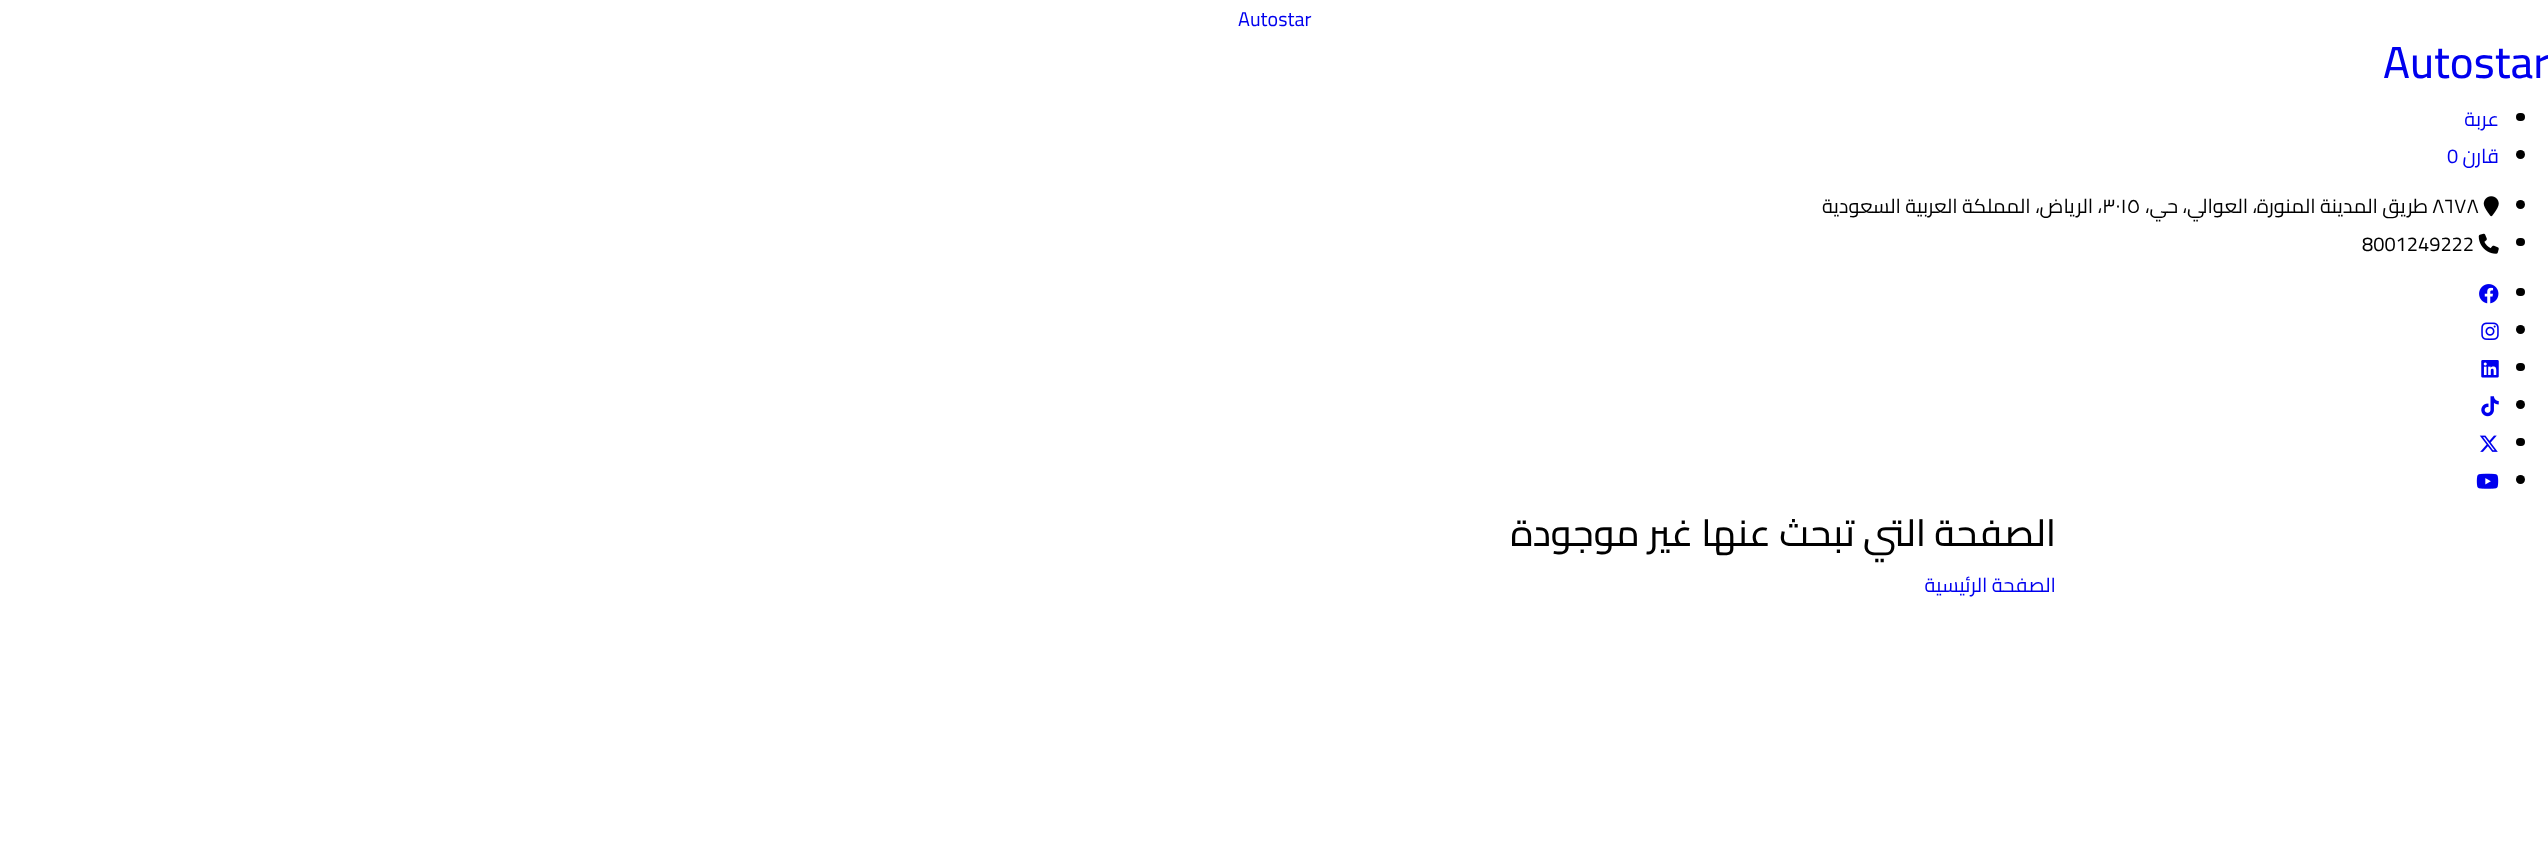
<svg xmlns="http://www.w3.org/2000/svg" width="2548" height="858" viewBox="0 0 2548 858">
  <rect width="100%" height="100%" fill="#fff"/>
  <rect x="2516" y="113" width="9" height="8" rx="4" fill="#000"/>
  <circle cx="2520.5" cy="154.5" r="4.5" fill="#000"/>
  <circle cx="2520.5" cy="204.5" r="4.5" fill="#000"/>
  <image x="2483" y="196" width="16" height="21" href="img/1.png"/>
  <rect x="2516" y="238" width="9" height="8" rx="4" fill="#000"/>
  <image x="2478" y="233" width="21" height="21" href="img/2.png"/>
  <rect x="2516" y="288" width="9" height="8" rx="4" fill="#000"/>
  <image x="2479" y="284" width="20" height="20" href="img/3.png"/>
  <circle cx="2520.5" cy="329.5" r="4.5" fill="#000"/>
  <image x="2481" y="322" width="18" height="18" href="img/4.png"/>
  <rect x="2516" y="363" width="9" height="8" rx="4" fill="#000"/>
  <image x="2481" y="360" width="18" height="18" href="img/5.png"/>
  <circle cx="2520.5" cy="404.5" r="4.5" fill="#000"/>
  <image x="2481" y="396" width="18" height="21" href="img/6.png"/>
  <rect x="2516" y="438" width="9" height="8" rx="4" fill="#000"/>
  <image x="2479" y="435" width="19" height="17" href="img/7.png"/>
  <circle cx="2520.5" cy="479.5" r="4.5" fill="#000"/>
  <image x="2476" y="473" width="23" height="16" href="img/8.png"/>
  <text x="1238" y="26" font-family="Cairo" font-size="20" fill="#00e">Autostar</text>
  <text x="2383" y="78" font-family="Cairo" font-size="45" font-weight="500" fill="#00e">Autostar</text>
  <g font-family="Cairo" font-size="20" direction="rtl" fill="#00e">
    <text x="2499" y="126">عربة</text>
    <text x="2499" y="163">قارن</text>
  </g>
  <text x="2447" y="163" font-family="Cairo" font-size="20" fill="#00e">0</text>
  <text x="2432" y="213" font-family="Cairo" font-size="20" fill="#000">٨٦٧٨</text>
  <text x="2428" y="213" font-family="Cairo" font-size="20" direction="rtl" fill="#000">طريق المدينة المنورة، العوالي، حي،</text>
  <text x="2102" y="213" font-family="Cairo" font-size="20" fill="#000">٣٠١٥</text>
  <text x="2102" y="213" font-family="Cairo" font-size="20" direction="rtl" fill="#000">، الرياض، المملكة العربية السعودية</text>
  <text x="2362" y="251" font-family="Cairo" font-size="20" fill="#000">8001249222</text>
  <text x="2056" y="546" font-family="Cairo" font-size="37.5" font-weight="500" direction="rtl" fill="#000">الصفحة التي تبحث عنها غير موجودة</text>
  <text x="2056" y="592" font-family="Cairo" font-size="20" direction="rtl" fill="#00e">الصفحة الرئيسية</text>
</svg>
